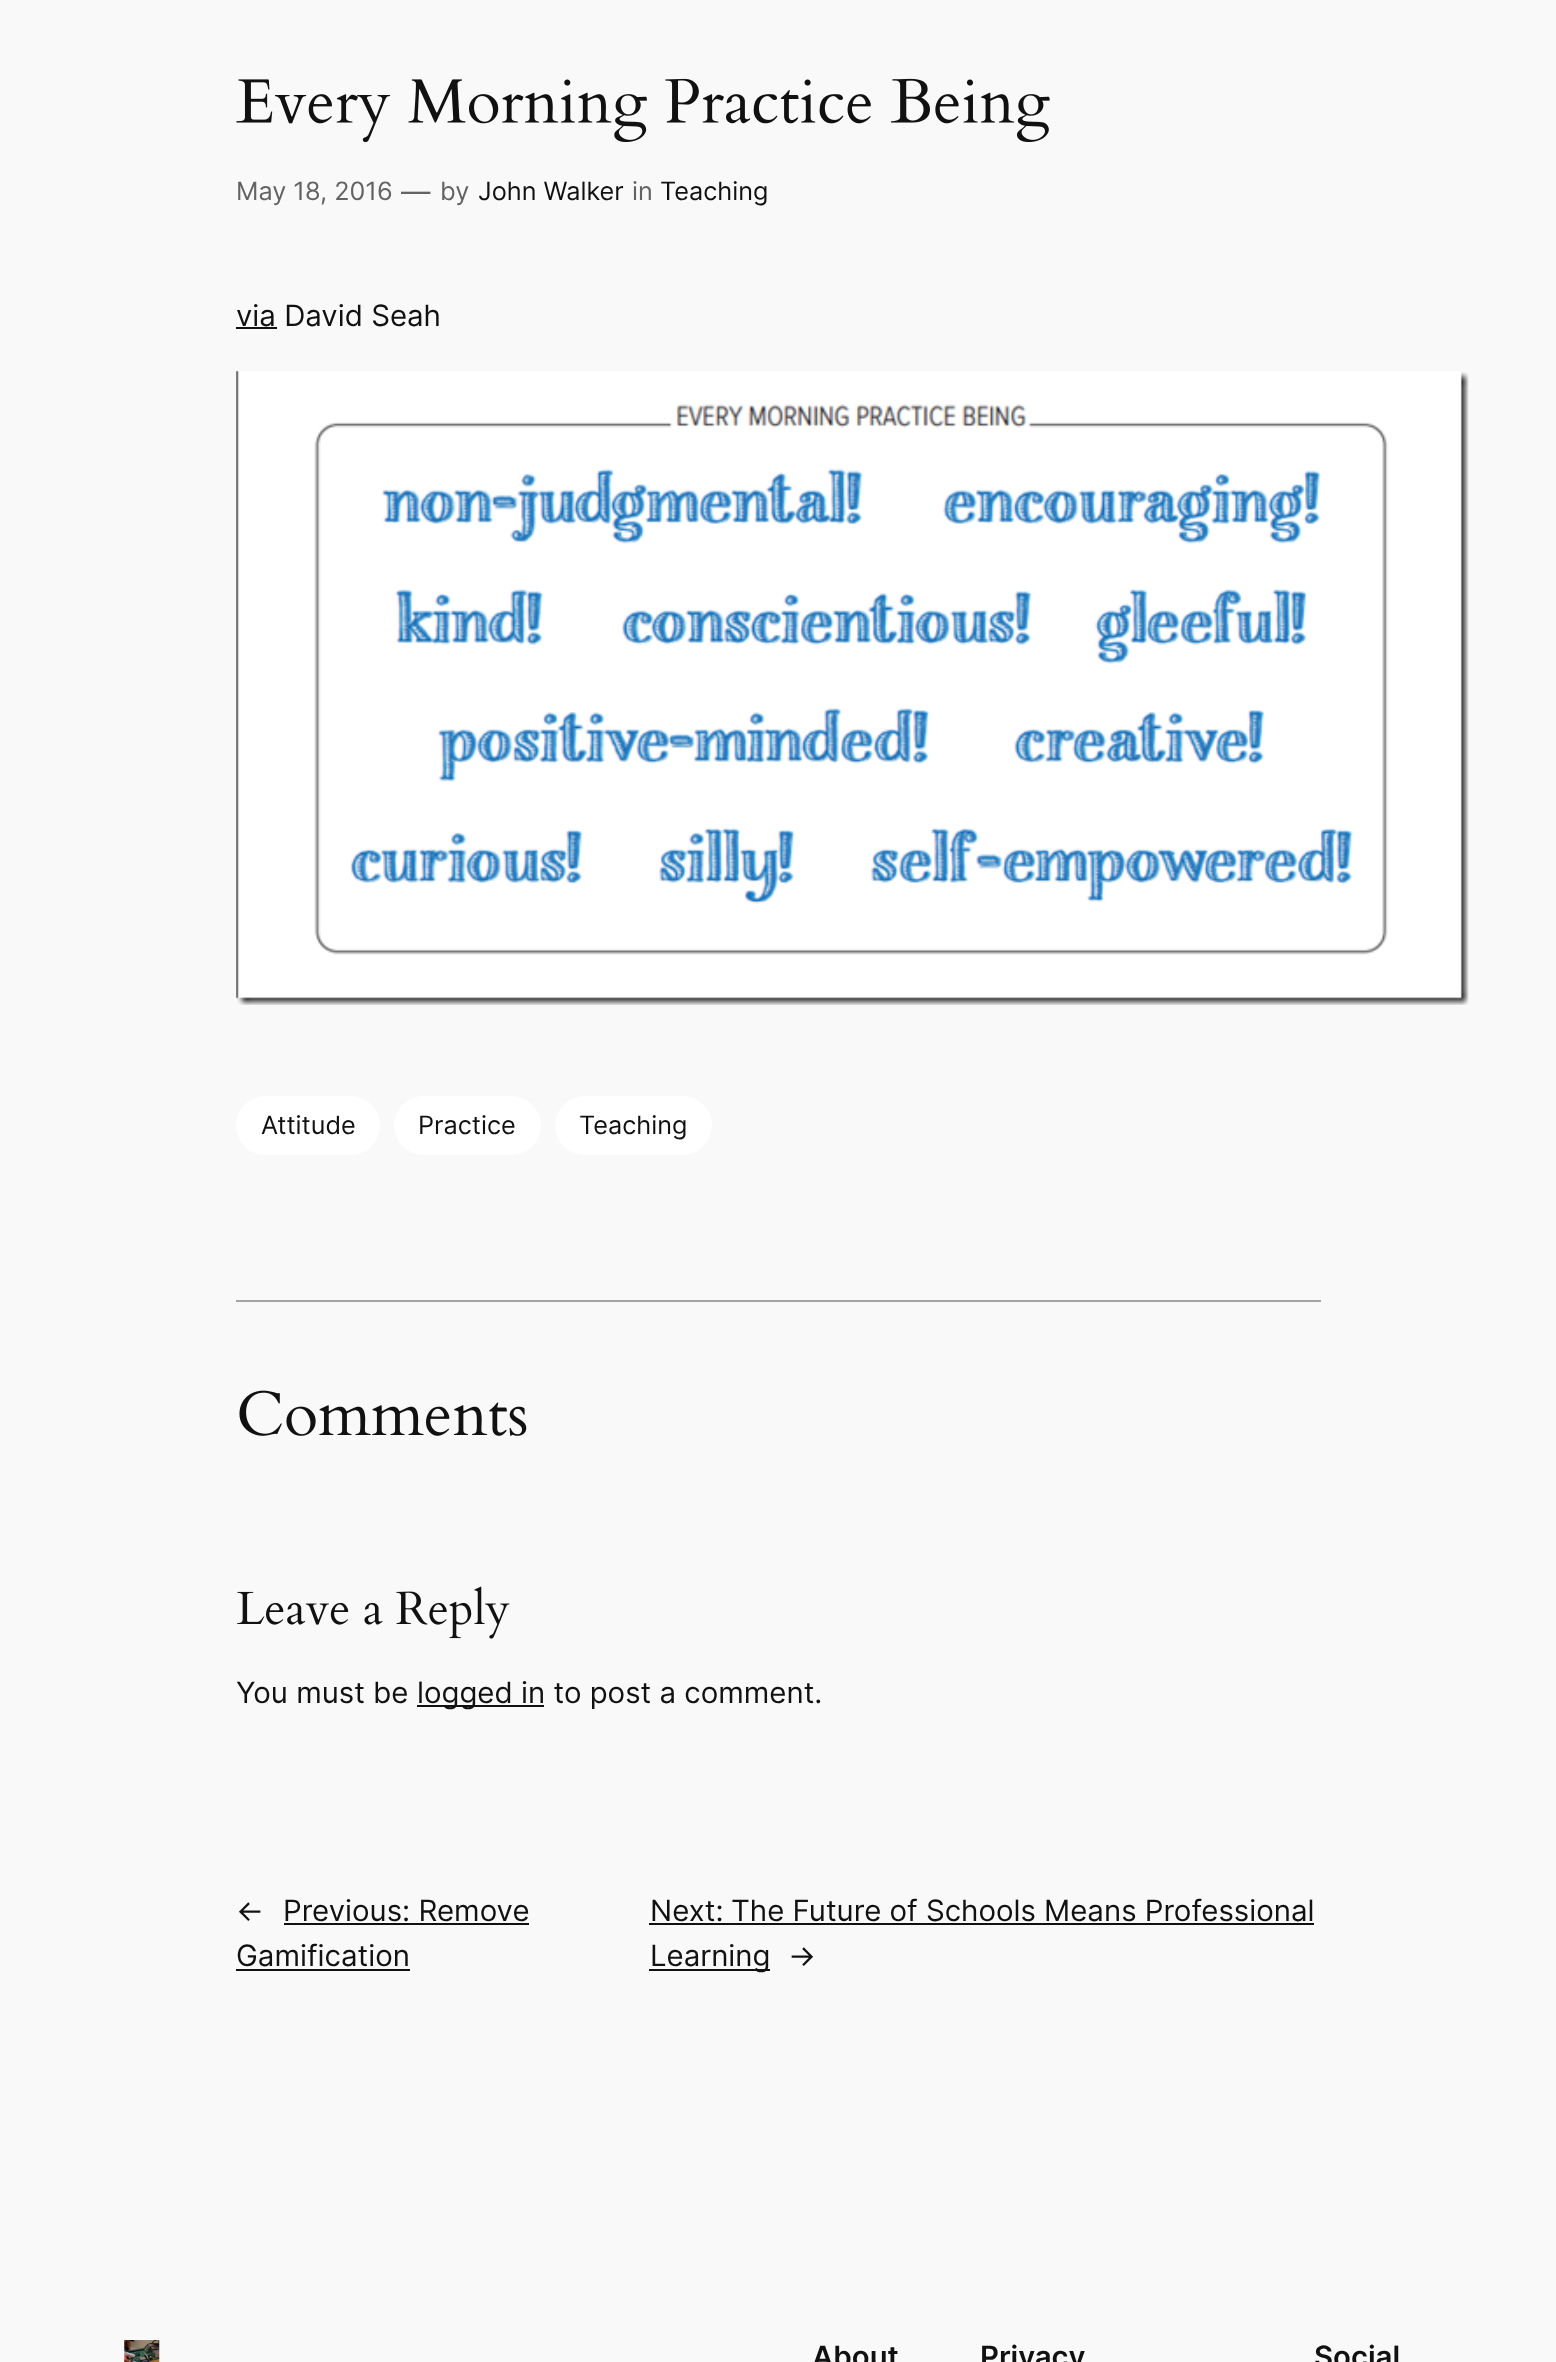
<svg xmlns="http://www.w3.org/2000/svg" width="1556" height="2362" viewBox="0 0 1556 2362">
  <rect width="100%" height="100%" fill="#f9f9f9"/>
  <image x="236" y="78" width="814" height="65" href="img/1.png"/>
  <path d="M236 327h41v2H236z" fill="#111"/>
  <image x="236" y="371" width="1233" height="634" href="img/2.png"/>
  <rect x="236" y="1096" width="144" height="59" rx="29.5" fill="#fff"/>
  <rect x="394" y="1096" width="147" height="59" rx="29.5" fill="#fff"/>
  <rect x="555" y="1096" width="157" height="59" rx="29.5" fill="#fff"/>
  <path d="M236 1300h1085v2H236z" fill="#a4a4a4"/>
  <image x="239" y="1390" width="288" height="46" href="img/3.png"/>
  <image x="237" y="1586" width="273" height="53" href="img/4.png"/>
  <path d="M417 1705h127v2H417z" fill="#111"/>
  <path d="M284 1923h245v2H284z" fill="#111"/>
  <path d="M236 1969h174v2H236z" fill="#111"/>
  <path d="M649 1923h665v2H649z" fill="#111"/>
  <path d="M649 1969h121v2H649z" fill="#111"/>
  <image x="124" y="2340" width="36" height="22" href="img/5.png"/>
  <text x="236" y="200" font-family="Inter" font-size="25.25" fill="#636363">May 18, 2016</text>
  <text x="401" y="202" font-family="Inter" font-size="29.4" fill="#636363">—</text>
  <text x="440" y="200" font-family="Inter" font-size="25.25" fill="#636363">by</text>
  <text x="478" y="200" font-family="Inter" font-size="25.25" fill="#111">John Walker</text>
  <text x="632" y="200" font-family="Inter" font-size="25.25" fill="#636363">in</text>
  <text x="660" y="200" font-family="Inter" font-size="25.25" fill="#111">Teaching</text>
  <text x="236" y="326" font-family="Inter" font-size="29.4" fill="#111">via David Seah</text>
  <g font-family="Inter" font-size="25.25" fill="#111">
    <text x="261" y="1134">Attitude</text>
    <text x="418" y="1134">Practice</text>
    <text x="579" y="1134">Teaching</text>
  </g>
  <g font-family="Inter" font-size="29.4" fill="#111">
    <text x="236" y="1703">You must be</text>
    <text x="417" y="1703">logged in to post a comment.</text>
    <text x="236" y="1921">←</text>
    <text x="283" y="1921">Previous: Remove</text>
    <text x="236" y="1966">Gamification</text>
    <text x="650" y="1921">Next:</text>
    <text x="731" y="1921">The Future of Schools Means Professional</text>
    <text x="650" y="1966">Learning</text>
    <text x="788" y="1966">→</text>
  </g>
  <g font-family="Inter" font-size="29.4" font-weight="600" fill="#111">
    <text x="812" y="2367">About</text>
    <text x="980" y="2367">Privacy</text>
    <text x="1314" y="2367">Social</text>
  </g>
</svg>
